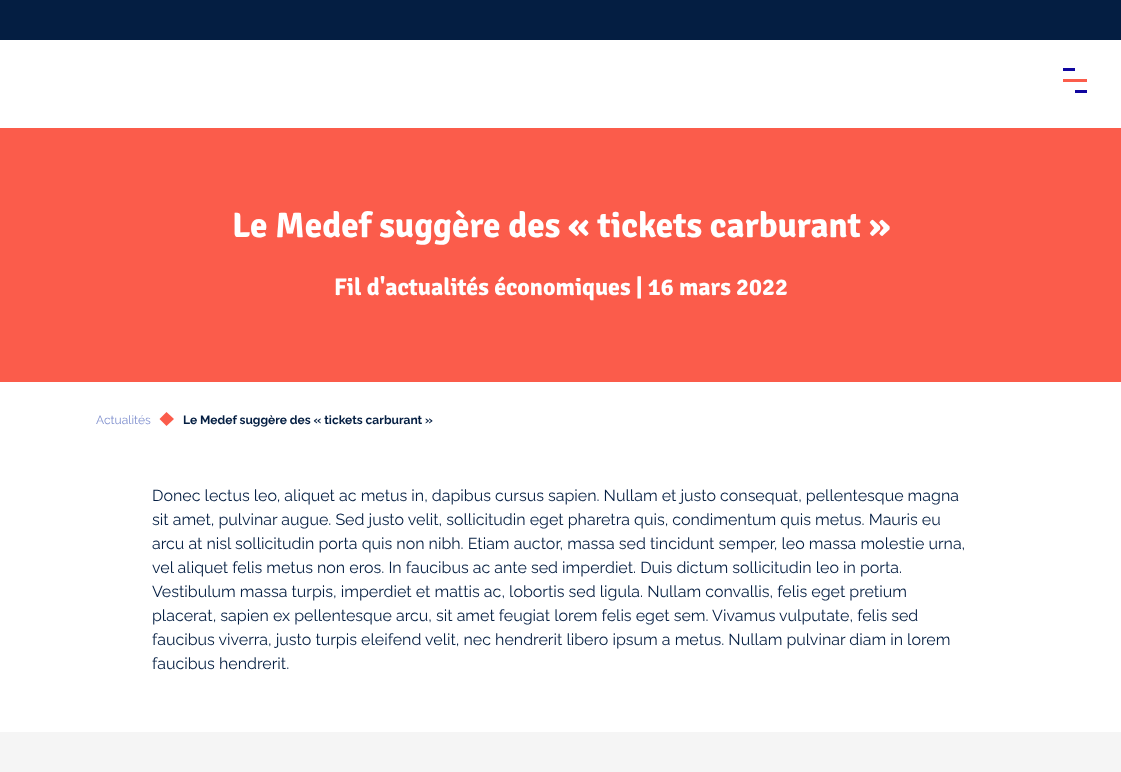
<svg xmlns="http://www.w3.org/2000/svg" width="1121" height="772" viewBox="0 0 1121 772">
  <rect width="100%" height="100%" fill="#fff"/>
  <path d="M0 0h1121v40H0z" fill="#041e42"/>
  <path d="M1063 68h12v3H1063z" fill="#10069f"/>
  <path d="M1063 79h24v3H1063z" fill="#fb5c4b"/>
  <path d="M1075 90h12v3H1075z" fill="#10069f"/>
  <path d="M0 128h1121v254H0z" fill="#fb5c4b"/>
  <path d="M166.5 412L174 419L166.5 426L159.5 419Z" fill="#fb5c4b"/>
  <path d="M0 732h1121v40H0z" fill="#f5f5f5"/>
  <text x="232" y="237" font-family="Signika" font-size="35.25" font-weight="bold" fill="#fff">Le Medef suggère des « tickets carburant »</text>
  <text x="334" y="295" font-family="Signika" font-size="24" font-weight="bold" fill="#fff">Fil d'actualités économiques | 16 mars 2022</text>
  <text x="96" y="424" font-family="Raleway" font-size="12" fill="#8292cf">Actualités</text>
  <text x="183" y="424" font-family="Raleway" font-size="12" font-weight="bold" fill="#041e42">Le Medef suggère des « tickets carburant »</text>
  <g font-family="Raleway" font-size="16" fill="#041e42">
    <text x="152" y="501">Donec lectus leo, aliquet ac metus in, dapibus cursus sapien. Nullam et justo consequat, pellentesque magna</text>
    <text x="152" y="525">sit amet, pulvinar augue. Sed justo velit, sollicitudin eget pharetra quis, condimentum quis metus. Mauris eu</text>
    <text x="152" y="549">arcu at nisl sollicitudin porta quis non nibh. Etiam auctor, massa sed tincidunt semper, leo massa molestie urna,</text>
    <text x="152" y="573">vel aliquet felis metus non eros. In faucibus ac ante sed imperdiet. Duis dictum sollicitudin leo in porta.</text>
    <text x="152" y="597">Vestibulum massa turpis, imperdiet et mattis ac, lobortis sed ligula. Nullam convallis, felis eget pretium</text>
    <text x="152" y="621">placerat, sapien ex pellentesque arcu, sit amet feugiat lorem felis eget sem. Vivamus vulputate, felis sed</text>
    <text x="152" y="645">faucibus viverra, justo turpis eleifend velit, nec hendrerit libero ipsum a metus. Nullam pulvinar diam in lorem</text>
    <text x="152" y="669">faucibus hendrerit.</text>
  </g>
</svg>
